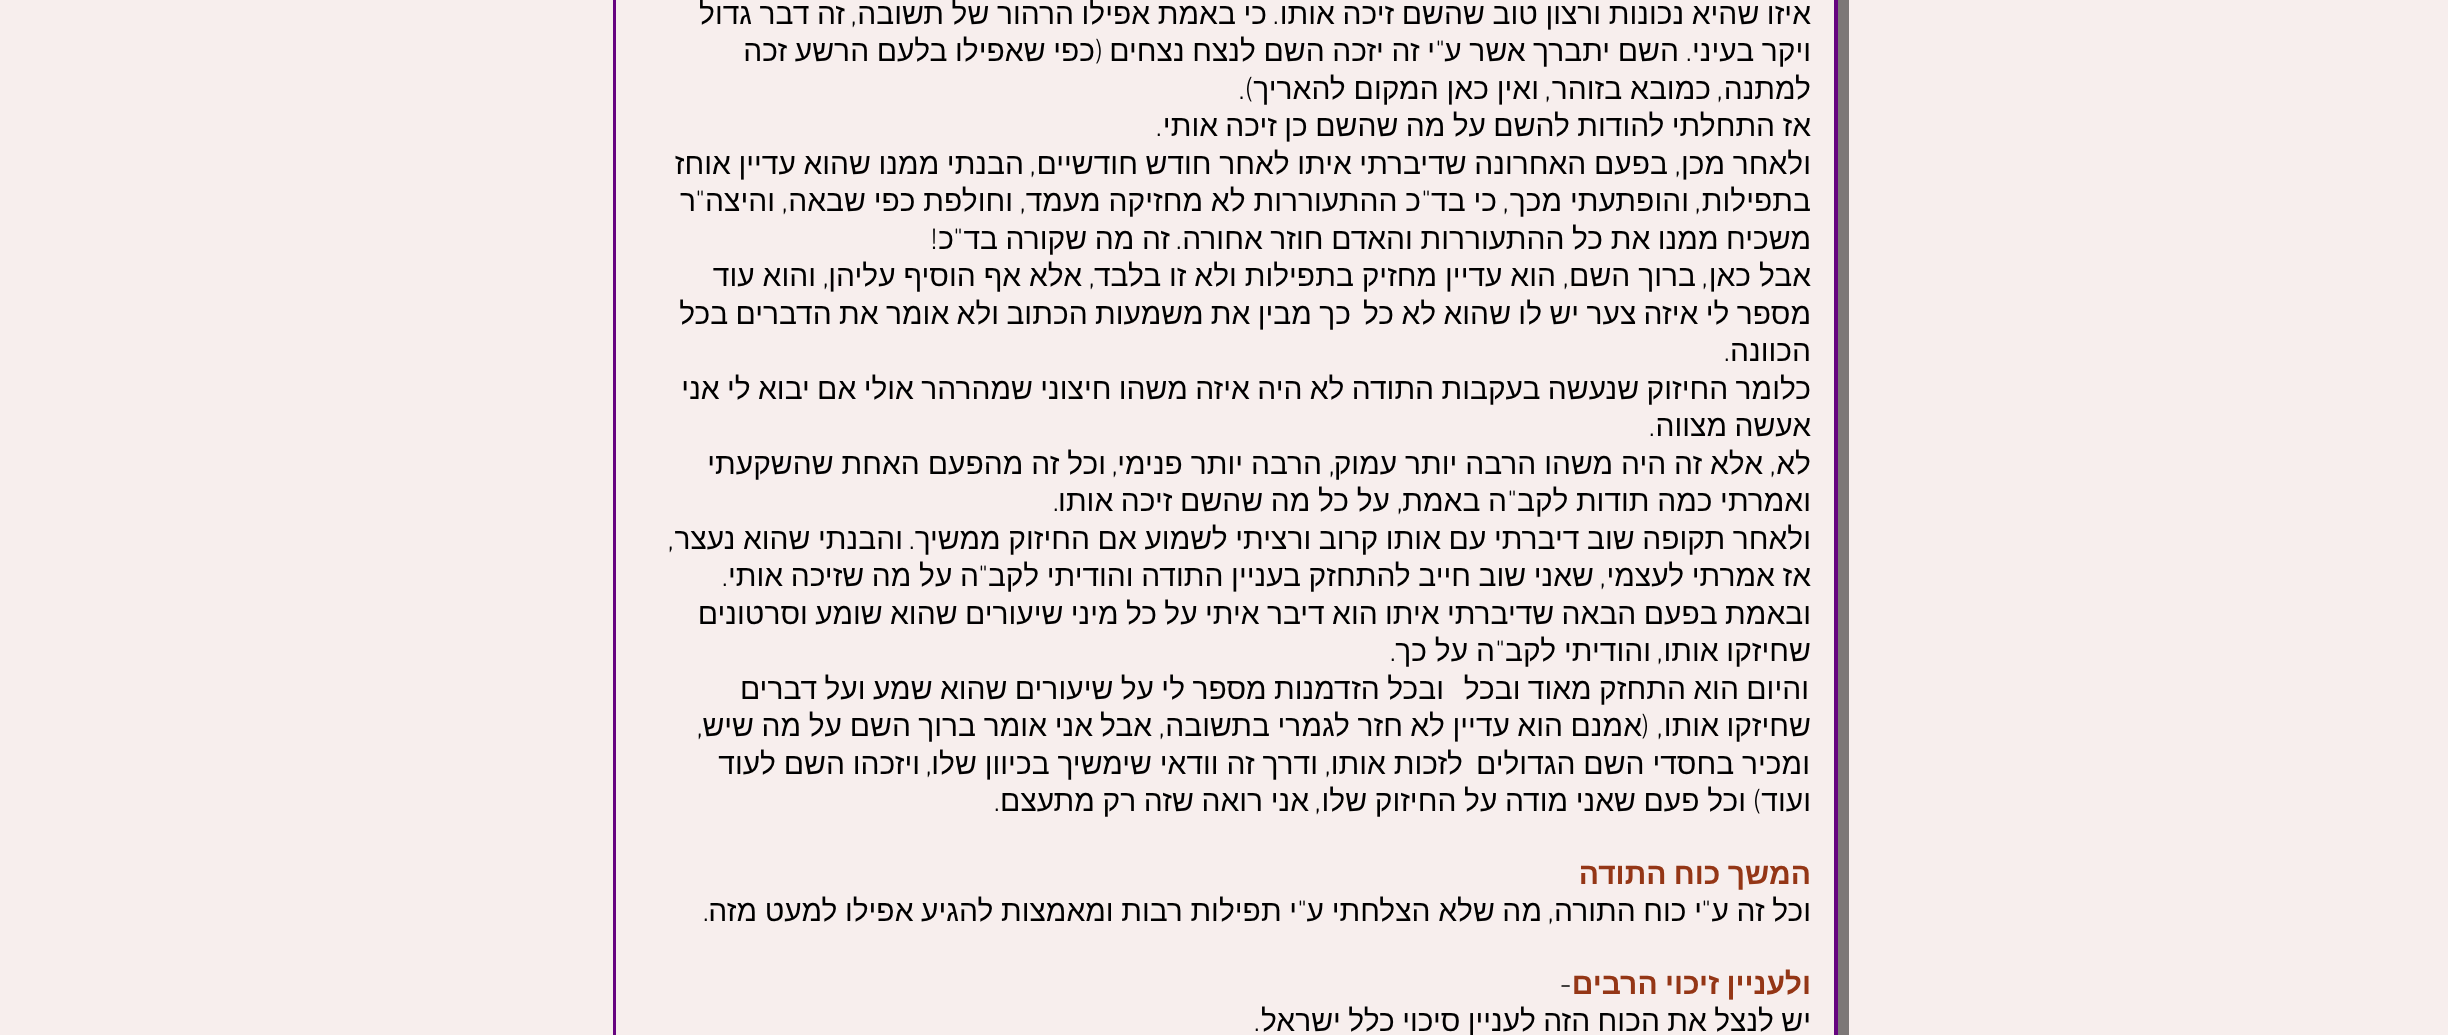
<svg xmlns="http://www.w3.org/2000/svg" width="2448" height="1035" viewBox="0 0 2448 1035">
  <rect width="100%" height="100%" fill="#f7eeed"/>
  <path d="M624 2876V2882C624 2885 627 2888 630 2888H1843C1846 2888 1849 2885 1849 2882V-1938C1849-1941 1846-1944 1843-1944H1838V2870C1838 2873 1835 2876 1831 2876Z" fill="#7c7777"/>
  <path d="M619 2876V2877C619 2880 622 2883 625 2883H1838C1841 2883 1844 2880 1844 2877V-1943C1844-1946 1841-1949 1838-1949H1837L1838 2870C1838 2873 1835 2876 1831 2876Z" fill="#7c7777"/>
  <path d="M616 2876C617 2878 619 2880 622 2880H1835C1838 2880 1841 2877 1841 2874V-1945C1841-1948 1839-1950 1837-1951L1838 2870C1838 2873 1835 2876 1831 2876H619Z" fill="#7c7777"/>
  <path d="M613 0h1225v1035H613z" fill="#660480"/>
  <path d="M616 0h1218v1035H616z" fill="#f7eeed"/>
  <text x="1811" y="24" word-spacing="-0.75" font-family="Liberation Sans" font-size="30" direction="rtl" fill="#000">איזו שהיא נכונות ורצון טוב שהשם זיכה אותו</text>
  <text x="1279" y="24" font-family="'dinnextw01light'" font-size="30" font-weight="300" direction="rtl" fill="#000">.</text>
  <text x="1267" y="24" word-spacing="-0.75" font-family="Liberation Sans" font-size="30" direction="rtl" fill="#000">כי באמת אפילו הרהור של תשובה</text>
  <text x="857" y="24" font-family="'dinnextw01light'" font-size="30" font-weight="300" direction="rtl" fill="#000">,</text>
  <g font-family="Liberation Sans" font-size="30" direction="rtl" fill="#000">
    <text x="845" y="24" word-spacing="-0.75">זה דבר גדול</text>
    <text x="1811" y="61" word-spacing="-0.75">ויקר בעיני</text>
  </g>
  <text x="1692" y="61" font-family="'dinnextw01light'" font-size="30" font-weight="300" direction="rtl" fill="#000">.</text>
  <text x="1679" y="61" word-spacing="-0.75" font-family="Liberation Sans" font-size="30" direction="rtl" fill="#000">השם יתברך אשר ע</text>
  <text x="1445" y="61" font-family="'dinnextw01light'" font-size="30" font-weight="300" direction="rtl" fill="#000">"</text>
  <text x="1435" y="61" word-spacing="-0.75" font-family="Liberation Sans" font-size="30" direction="rtl" fill="#000">י זה יזכה השם לנצח נצחים</text>
  <text x="1103" y="61" font-family="'dinnextw01light'" font-size="30" font-weight="300" direction="rtl" fill="#000">(</text>
  <g font-family="Liberation Sans" font-size="30" direction="rtl" fill="#000">
    <text x="1095" y="61" word-spacing="-0.75">כפי שאפילו בלעם הרשע זכה</text>
    <text x="1811" y="99">למתנה</text>
  </g>
  <text x="1723" y="99" font-family="'dinnextw01light'" font-size="30" font-weight="300" direction="rtl" fill="#000">,</text>
  <text x="1711" y="99" word-spacing="-0.5" font-family="Liberation Sans" font-size="30" direction="rtl" fill="#000">כמובא בזוהר</text>
  <text x="1551" y="99" font-family="'dinnextw01light'" font-size="30" font-weight="300" direction="rtl" fill="#000">,</text>
  <text x="1539" y="99" word-spacing="-0.5" font-family="Liberation Sans" font-size="30" direction="rtl" fill="#000">ואין כאן המקום להאריך</text>
  <text x="1253" y="99" font-family="'dinnextw01light'" font-size="30" font-weight="300" direction="rtl" fill="#000">).</text>
  <text x="1811" y="136" word-spacing="-1" font-family="Liberation Sans" font-size="30" direction="rtl" fill="#000">אז התחלתי להודות להשם על מה שהשם כן זיכה אותי</text>
  <text x="1162" y="136" font-family="'dinnextw01light'" font-size="30" font-weight="300" direction="rtl" fill="#000">.</text>
  <text x="1811" y="174" word-spacing="-0.75" font-family="Liberation Sans" font-size="30" direction="rtl" fill="#000">ולאחר מכן</text>
  <text x="1681" y="174" font-family="'dinnextw01light'" font-size="30" font-weight="300" direction="rtl" fill="#000">,</text>
  <text x="1668" y="174" word-spacing="-0.75" font-family="Liberation Sans" font-size="30" direction="rtl" fill="#000">בפעם האחרונה שדיברתי איתו לאחר חודש חודשיים</text>
  <text x="1036" y="174" font-family="'dinnextw01light'" font-size="30" font-weight="300" direction="rtl" fill="#000">,</text>
  <g font-family="Liberation Sans" font-size="30" direction="rtl" fill="#000">
    <text x="1024" y="174" word-spacing="-0.75">הבנתי ממנו שהוא עדיין אוחז</text>
    <text x="1811" y="211">בתפילות</text>
  </g>
  <text x="1701" y="211" font-family="'dinnextw01light'" font-size="30" font-weight="300" direction="rtl" fill="#000">,</text>
  <text x="1689" y="211" word-spacing="-0.5" font-family="Liberation Sans" font-size="30" direction="rtl" fill="#000">והופתעתי מכך</text>
  <text x="1509" y="211" font-family="'dinnextw01light'" font-size="30" font-weight="300" direction="rtl" fill="#000">,</text>
  <text x="1497" y="211" word-spacing="-0.5" font-family="Liberation Sans" font-size="30" direction="rtl" fill="#000">כי בד</text>
  <text x="1431" y="211" font-family="'dinnextw01light'" font-size="30" font-weight="300" direction="rtl" fill="#000">"</text>
  <text x="1421" y="211" word-spacing="-0.5" font-family="Liberation Sans" font-size="30" direction="rtl" fill="#000">כ ההתעוררות לא מחזיקה מעמד</text>
  <text x="1026" y="211" font-family="'dinnextw01light'" font-size="30" font-weight="300" direction="rtl" fill="#000">,</text>
  <text x="1013" y="211" word-spacing="-0.5" font-family="Liberation Sans" font-size="30" direction="rtl" fill="#000">וחולפת כפי שבאה</text>
  <text x="788" y="211" font-family="'dinnextw01light'" font-size="30" font-weight="300" direction="rtl" fill="#000">,</text>
  <text x="775" y="211" font-family="Liberation Sans" font-size="30" direction="rtl" fill="#000">והיצה</text>
  <text x="705" y="211" font-family="'dinnextw01light'" font-size="30" font-weight="300" direction="rtl" fill="#000">"</text>
  <g font-family="Liberation Sans" font-size="30" direction="rtl" fill="#000">
    <text x="696" y="211">ר</text>
    <text x="1811" y="249" word-spacing="-0.75">משכיח ממנו את כל ההתעוררות והאדם חוזר אחורה</text>
  </g>
  <text x="1182" y="249" font-family="'dinnextw01light'" font-size="30" font-weight="300" direction="rtl" fill="#000">.</text>
  <text x="1170" y="249" word-spacing="-0.75" font-family="Liberation Sans" font-size="30" direction="rtl" fill="#000">זה מה שקורה בד</text>
  <text x="963" y="249" font-family="'dinnextw01light'" font-size="30" font-weight="300" direction="rtl" fill="#000">"</text>
  <text x="954" y="249" font-family="Liberation Sans" font-size="30" direction="rtl" fill="#000">כ</text>
  <text x="938" y="249" font-family="'dinnextw01light'" font-size="30" font-weight="300" direction="rtl" fill="#000">!</text>
  <text x="1811" y="286" word-spacing="-0.5" font-family="Liberation Sans" font-size="30" direction="rtl" fill="#000">אבל כאן</text>
  <text x="1708" y="286" font-family="'dinnextw01light'" font-size="30" font-weight="300" direction="rtl" fill="#000">,</text>
  <text x="1696" y="286" word-spacing="-0.5" font-family="Liberation Sans" font-size="30" direction="rtl" fill="#000">ברוך השם</text>
  <text x="1569" y="286" font-family="'dinnextw01light'" font-size="30" font-weight="300" direction="rtl" fill="#000">,</text>
  <text x="1556" y="286" word-spacing="-0.5" font-family="Liberation Sans" font-size="30" direction="rtl" fill="#000">הוא עדיין מחזיק בתפילות ולא זו בלבד</text>
  <text x="1095" y="286" font-family="'dinnextw01light'" font-size="30" font-weight="300" direction="rtl" fill="#000">,</text>
  <text x="1082" y="286" word-spacing="-0.5" font-family="Liberation Sans" font-size="30" direction="rtl" fill="#000">אלא אף הוסיף עליהן</text>
  <text x="829" y="286" font-family="'dinnextw01light'" font-size="30" font-weight="300" direction="rtl" fill="#000">,</text>
  <g font-family="Liberation Sans" font-size="30" direction="rtl" fill="#000">
    <text x="816" y="286" word-spacing="-0.5">והוא עוד</text>
    <text x="1811" y="324" word-spacing="-1">מספר לי איזה צער יש לו שהוא לא כל</text>
    <text x="1351" y="324" word-spacing="-1">כך מבין את משמעות הכתוב ולא אומר את הדברים בכל</text>
    <text x="1811" y="361">הכוונה</text>
  </g>
  <text x="1730" y="361" font-family="'dinnextw01light'" font-size="30" font-weight="300" direction="rtl" fill="#000">.</text>
  <g font-family="Liberation Sans" font-size="30" direction="rtl" fill="#000">
    <text x="1811" y="399" word-spacing="-1">כלומר החיזוק שנעשה בעקבות התודה לא היה איזה משהו חיצוני שמהרהר אולי אם יבוא לי אני</text>
    <text x="1811" y="436" word-spacing="-1">אעשה מצווה</text>
  </g>
  <text x="1655" y="436" font-family="'dinnextw01light'" font-size="30" font-weight="300" direction="rtl" fill="#000">.</text>
  <text x="1811" y="474" font-family="Liberation Sans" font-size="30" direction="rtl" fill="#000">לא</text>
  <text x="1776" y="474" font-family="'dinnextw01light'" font-size="30" font-weight="300" direction="rtl" fill="#000">,</text>
  <text x="1763" y="474" word-spacing="-0.5" font-family="Liberation Sans" font-size="30" direction="rtl" fill="#000">אלא זה היה משהו הרבה יותר עמוק</text>
  <text x="1335" y="474" font-family="'dinnextw01light'" font-size="30" font-weight="300" direction="rtl" fill="#000">,</text>
  <text x="1322" y="474" word-spacing="-0.5" font-family="Liberation Sans" font-size="30" direction="rtl" fill="#000">הרבה יותר פנימי</text>
  <text x="1118" y="474" font-family="'dinnextw01light'" font-size="30" font-weight="300" direction="rtl" fill="#000">,</text>
  <g font-family="Liberation Sans" font-size="30" direction="rtl" fill="#000">
    <text x="1106" y="474" word-spacing="-0.5">וכל זה מהפעם האחת שהשקעתי</text>
    <text x="1811" y="511" word-spacing="-0.75">ואמרתי כמה תודות לקב</text>
  </g>
  <text x="1517" y="511" font-family="'dinnextw01light'" font-size="30" font-weight="300" direction="rtl" fill="#000">"</text>
  <text x="1507" y="511" word-spacing="-0.75" font-family="Liberation Sans" font-size="30" direction="rtl" fill="#000">ה באמת</text>
  <text x="1403" y="511" font-family="'dinnextw01light'" font-size="30" font-weight="300" direction="rtl" fill="#000">,</text>
  <text x="1390" y="511" word-spacing="-0.75" font-family="Liberation Sans" font-size="30" direction="rtl" fill="#000">על כל מה שהשם זיכה אותו</text>
  <text x="1059" y="511" font-family="'dinnextw01light'" font-size="30" font-weight="300" direction="rtl" fill="#000">.</text>
  <text x="1811" y="549" word-spacing="-0.75" font-family="Liberation Sans" font-size="30" direction="rtl" fill="#000">ולאחר תקופה שוב דיברתי עם אותו קרוב ורציתי לשמוע אם החיזוק ממשיך</text>
  <text x="915" y="549" font-family="'dinnextw01light'" font-size="30" font-weight="300" direction="rtl" fill="#000">.</text>
  <text x="903" y="549" word-spacing="-0.75" font-family="Liberation Sans" font-size="30" direction="rtl" fill="#000">והבנתי שהוא נעצר</text>
  <text x="674" y="549" font-family="'dinnextw01light'" font-size="30" font-weight="300" direction="rtl" fill="#000">,</text>
  <g font-family="Liberation Sans" font-size="30" direction="rtl" fill="#000">
    <text x="1811" y="586" word-spacing="-0.75">אז אמרתי לעצמי</text>
    <text x="1594" y="586" word-spacing="-0.75">שאני שוב חייב להתחזק בעניין התודה והודיתי לקב</text>
  </g>
  <text x="988" y="586" font-family="'dinnextw01light'" font-size="30" font-weight="300" direction="rtl" fill="#000">"</text>
  <text x="979" y="586" word-spacing="-0.75" font-family="Liberation Sans" font-size="30" direction="rtl" fill="#000">ה על מה שזיכה אותי</text>
  <g font-family="'dinnextw01light'" font-size="30" font-weight="300" direction="rtl" fill="#000">
    <text x="1606" y="586">,</text>
    <text x="728" y="586">.</text>
  </g>
  <g font-family="Liberation Sans" font-size="30" direction="rtl" fill="#000">
    <text x="1811" y="624" word-spacing="-1">ובאמת בפעם הבאה שדיברתי איתו הוא דיבר איתי על כל מיני שיעורים שהוא שומע וסרטונים</text>
    <text x="1811" y="661" word-spacing="-0.5">שחיזקו אותו</text>
  </g>
  <text x="1663" y="661" font-family="'dinnextw01light'" font-size="30" font-weight="300" direction="rtl" fill="#000">,</text>
  <text x="1651" y="661" word-spacing="-0.5" font-family="Liberation Sans" font-size="30" direction="rtl" fill="#000">והודיתי לקב</text>
  <text x="1505" y="661" font-family="'dinnextw01light'" font-size="30" font-weight="300" direction="rtl" fill="#000">"</text>
  <text x="1495" y="661" word-spacing="-0.5" font-family="Liberation Sans" font-size="30" direction="rtl" fill="#000">ה על כך</text>
  <text x="1396" y="661" font-family="'dinnextw01light'" font-size="30" font-weight="300" direction="rtl" fill="#000">.</text>
  <g font-family="Liberation Sans" font-size="30" direction="rtl" fill="#000">
    <text x="1809" y="699" word-spacing="-1">והיום הוא התחזק מאוד ובכל</text>
    <text x="1444" y="699" word-spacing="-1">ובכל הזדמנות מספר לי על שיעורים שהוא שמע ועל דברים</text>
    <text x="1811" y="736">שחיזקו</text>
    <text x="1719" y="736">אותו</text>
  </g>
  <text x="1663" y="736" font-family="'dinnextw01light'" font-size="30" font-weight="300" direction="rtl" fill="#000">, (</text>
  <g font-family="Liberation Sans" font-size="30" direction="rtl" fill="#000">
    <text x="1642" y="736">אמנם</text>
    <text x="1563" y="736">הוא</text>
    <text x="1510" y="736">עדיין</text>
    <text x="1445" y="736">לא</text>
    <text x="1403" y="736">חזר</text>
    <text x="1350" y="736">לגמרי</text>
    <text x="1270" y="736">בתשובה</text>
  </g>
  <text x="1165" y="736" font-family="'dinnextw01light'" font-size="30" font-weight="300" direction="rtl" fill="#000">,</text>
  <g font-family="Liberation Sans" font-size="30" direction="rtl" fill="#000">
    <text x="1152" y="736">אבל</text>
    <text x="1093" y="736">אני</text>
    <text x="1047" y="736">אומר</text>
    <text x="976" y="736">ברוך</text>
    <text x="911" y="736">השם</text>
    <text x="842" y="736">על</text>
    <text x="801" y="736">מה</text>
    <text x="754" y="736">שיש</text>
  </g>
  <text x="703" y="736" font-family="'dinnextw01light'" font-size="30" font-weight="300" direction="rtl" fill="#000">,</text>
  <g font-family="Liberation Sans" font-size="30" direction="rtl" fill="#000">
    <text x="1810" y="774" word-spacing="-0.5">ומכיר בחסדי השם הגדולים</text>
    <text x="1463" y="774" word-spacing="-0.5">לזכות אותו</text>
  </g>
  <text x="1331" y="774" font-family="'dinnextw01light'" font-size="30" font-weight="300" direction="rtl" fill="#000">,</text>
  <text x="1318" y="774" word-spacing="-0.5" font-family="Liberation Sans" font-size="30" direction="rtl" fill="#000">ודרך זה וודאי שימשיך בכיוון שלו</text>
  <text x="932" y="774" font-family="'dinnextw01light'" font-size="30" font-weight="300" direction="rtl" fill="#000">,</text>
  <g font-family="Liberation Sans" font-size="30" direction="rtl" fill="#000">
    <text x="920" y="774" word-spacing="-0.5">ויזכהו השם לעוד</text>
    <text x="1811" y="811">ועוד</text>
  </g>
  <text x="1761" y="811" font-family="'dinnextw01light'" font-size="30" font-weight="300" direction="rtl" fill="#000">)</text>
  <text x="1746" y="811" word-spacing="-0.75" font-family="Liberation Sans" font-size="30" direction="rtl" fill="#000">וכל פעם שאני מודה על החיזוק שלו</text>
  <text x="1321" y="811" font-family="'dinnextw01light'" font-size="30" font-weight="300" direction="rtl" fill="#000">,</text>
  <text x="1309" y="811" word-spacing="-0.75" font-family="Liberation Sans" font-size="30" direction="rtl" fill="#000">אני רואה שזה רק מתעצם</text>
  <text x="1000" y="811" font-family="'dinnextw01light'" font-size="30" font-weight="300" direction="rtl" fill="#000">.</text>
  <text x="1811" y="884" word-spacing="-1" font-family="Liberation Sans" font-size="30" font-weight="bold" direction="rtl" fill="#943616">המשך כוח התודה</text>
  <text x="1811" y="921" word-spacing="-0.75" font-family="Liberation Sans" font-size="30" direction="rtl" fill="#000">וכל זה ע</text>
  <text x="1711" y="921" font-family="'dinnextw01light'" font-size="30" font-weight="300" direction="rtl" fill="#000">"</text>
  <text x="1702" y="921" word-spacing="-0.75" font-family="Liberation Sans" font-size="30" direction="rtl" fill="#000">י כוח התורה</text>
  <text x="1554" y="921" font-family="'dinnextw01light'" font-size="30" font-weight="300" direction="rtl" fill="#000">,</text>
  <g font-family="Liberation Sans" font-size="30" direction="rtl" fill="#000">
    <text x="1542" y="921" word-spacing="-0.75">מה שלא הצלחתי ע</text>
    <text x="1297" y="921" word-spacing="-0.75">י תפילות רבות ומאמצות להגיע אפילו למעט מזה</text>
  </g>
  <g font-family="'dinnextw01light'" font-size="30" font-weight="300" direction="rtl" fill="#000">
    <text x="1307" y="921">"</text>
    <text x="709" y="921">.</text>
  </g>
  <text x="1811" y="994" word-spacing="-1" font-family="Liberation Sans" font-size="30" font-weight="bold" direction="rtl" fill="#943616">ולעניין זיכוי הרבים</text>
  <text x="1560" y="994" font-family="'dinnextw01light'" font-size="30" font-weight="300" fill="#000">-</text>
  <text x="1811" y="1031" word-spacing="-1" font-family="Liberation Sans" font-size="30" direction="rtl" fill="#000">יש לנצל את הכוח הזה לעניין סיכוי כלל ישראל</text>
  <text x="1260" y="1031" font-family="'dinnextw01light'" font-size="30" font-weight="300" direction="rtl" fill="#000">.</text>
</svg>
